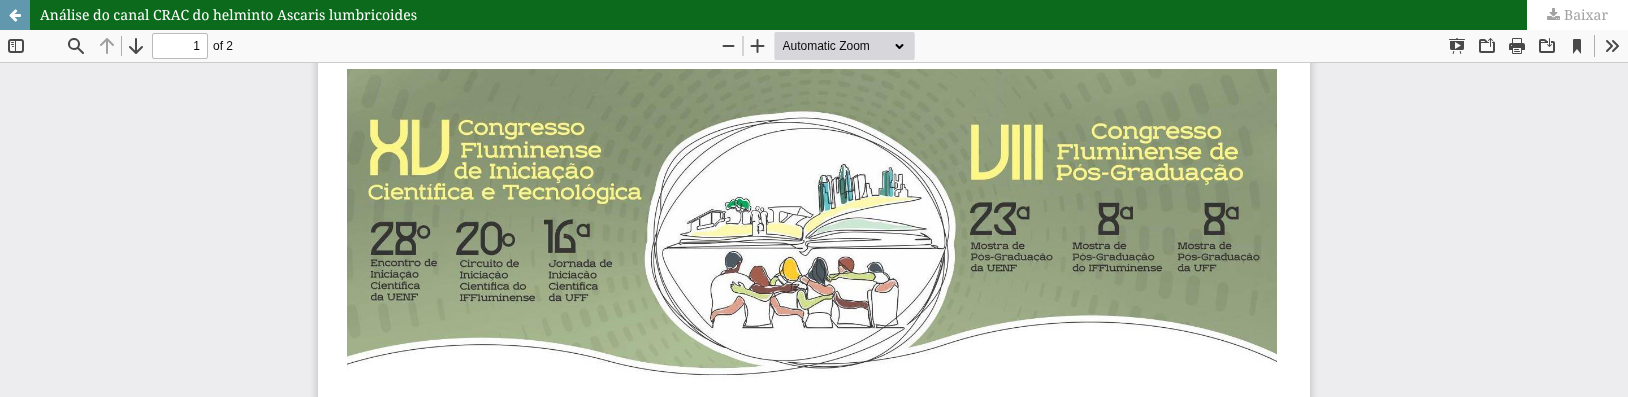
<svg xmlns="http://www.w3.org/2000/svg" width="1628" height="397" viewBox="0 0 1628 397">
  <rect width="100%" height="100%" fill="#fff"/>
  <path d="M30 0h1497v30H30z" fill="#0c6a1c"/>
  <path d="M0 0h30v30H0z" fill="#6298ae"/>
  <image x="9" y="9" width="12" height="13" href="img/1.png"/>
  <image x="1547" y="8" width="13" height="12" href="img/2.png"/>
  <image x="0" y="30" width="1628" height="367" href="img/3.png"/>
  <text x="40" y="20" font-family="Noto Serif" font-size="14" fill="#fff">Análise do canal CRAC do helminto Ascaris lumbricoides</text>
  <text x="1564" y="20" font-family="Noto Serif" font-size="14" fill="#a2a2a2">Baixar</text>
</svg>
